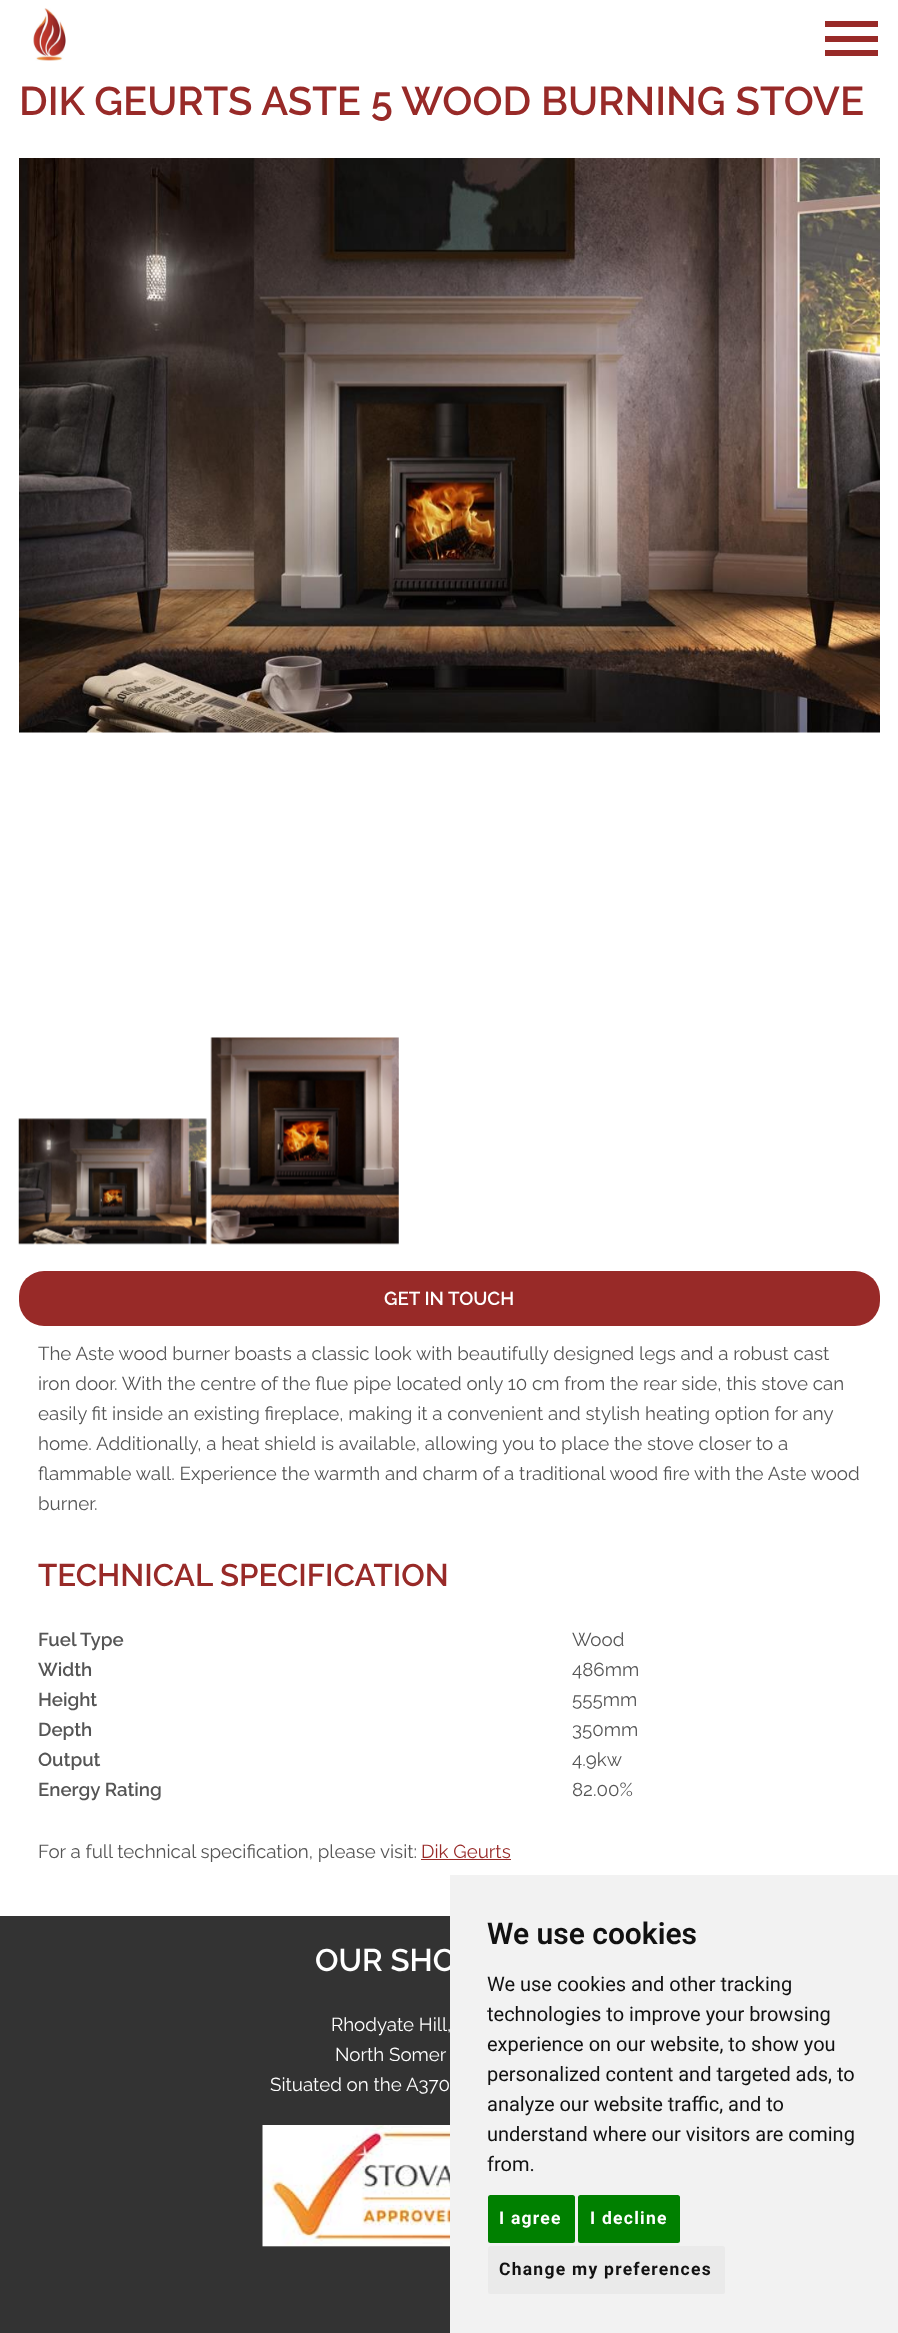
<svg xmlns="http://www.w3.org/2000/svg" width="898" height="2333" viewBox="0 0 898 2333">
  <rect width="100%" height="100%" fill="#fff"/>
  <image x="33" y="8" width="33" height="53" href="img/1.png"/>
  <path d="M825 21H878V27H825ZM825 36H878V42H825ZM825 50H878V56H825Z" fill="#982a28"/>
  <image x="19" y="158" width="861" height="575" href="img/2.png"/>
  <image x="18" y="1118" width="189" height="127" href="img/3.png"/>
  <image x="210" y="1037" width="189" height="208" href="img/4.png"/>
  <rect x="19" y="1271" width="861" height="55" rx="25" fill="#982a28"/>
  <path d="M421 1859h90v1H421z" fill="#982a28"/>
  <path d="M0 1916h450v417H0z" fill="#333"/>
  <image x="262" y="2125" width="188" height="122" href="img/5.png"/>
  <text x="19" y="115" font-family="Raleway" font-size="40" font-weight="600" fill="#982a28">DIK GEURTS ASTE 5 WOOD BURNING STOVE</text>
  <text x="384" y="1305" font-family="Raleway" font-size="18.75" font-weight="600" fill="#fff">GET IN TOUCH</text>
  <g font-family="Raleway" font-size="18.75" fill="#555">
    <text x="38" y="1360">The Aste wood burner boasts a classic look with beautifully designed legs and a robust cast</text>
    <text x="38" y="1390">iron door. With the centre of the flue pipe located only 10 cm from the rear side, this stove can</text>
    <text x="38" y="1420">easily fit inside an existing fireplace, making it a convenient and stylish heating option for any</text>
    <text x="38" y="1450">home. Additionally, a heat shield is available, allowing you to place the stove closer to a</text>
    <text x="38" y="1480">flammable wall. Experience the warmth and charm of a traditional wood fire with the Aste wood</text>
    <text x="38" y="1510">burner.</text>
  </g>
  <text x="38" y="1586" font-family="Raleway" font-size="31.25" font-weight="600" fill="#982a28">TECHNICAL SPECIFICATION</text>
  <text x="38" y="1646" font-family="Raleway" font-size="18.75" font-weight="600" fill="#555">Fuel Type</text>
  <text x="572" y="1646" font-family="Raleway" font-size="18.75" fill="#555">Wood</text>
  <text x="38" y="1676" font-family="Raleway" font-size="18.75" font-weight="600" fill="#555">Width</text>
  <text x="572" y="1676" font-family="Raleway" font-size="18.75" fill="#555">486mm</text>
  <text x="38" y="1706" font-family="Raleway" font-size="18.75" font-weight="600" fill="#555">Height</text>
  <text x="572" y="1706" font-family="Raleway" font-size="18.75" fill="#555">555mm</text>
  <text x="38" y="1736" font-family="Raleway" font-size="18.75" font-weight="600" fill="#555">Depth</text>
  <text x="572" y="1736" font-family="Raleway" font-size="18.75" fill="#555">350mm</text>
  <text x="38" y="1766" font-family="Raleway" font-size="18.75" font-weight="600" fill="#555">Output</text>
  <text x="572" y="1766" font-family="Raleway" font-size="18.75" fill="#555">4.9kw</text>
  <text x="38" y="1796" font-family="Raleway" font-size="18.75" font-weight="600" fill="#555">Energy Rating</text>
  <g font-family="Raleway" font-size="18.75" fill="#555">
    <text x="572" y="1796">82.00%</text>
    <text x="38" y="1858">For a full technical specification, please visit:</text>
  </g>
  <text x="421" y="1858" font-family="Raleway" font-size="18.75" fill="#982a28">Dik Geurts</text>
  <text x="315" y="1971" font-family="Raleway" font-size="31.25" font-weight="600" fill="#fff">OUR SHO</text>
  <g font-family="Raleway" font-size="18.75" fill="#fff">
    <text x="331" y="2031">Rhodyate Hill,</text>
    <text x="335" y="2061">North Somer</text>
    <text x="270" y="2091">Situated on the A370</text>
  </g>
  <path d="M450 1875h448v458H450z" fill="#f2f2f2"/>
  <text x="487" y="1944" font-family="Roboto" font-size="30" font-weight="600" fill="#111">We use cookies</text>
  <g font-family="Roboto" font-size="20" fill="#111">
    <text x="487" y="1991">We use cookies and other tracking</text>
    <text x="487" y="2021">technologies to improve your browsing</text>
    <text x="487" y="2051">experience on our website, to show you</text>
    <text x="487" y="2081">personalized content and targeted ads, to</text>
    <text x="487" y="2111">analyze our website traffic, and to</text>
    <text x="487" y="2141">understand where our visitors are coming</text>
    <text x="487" y="2171">from.</text>
  </g>
  <rect x="488" y="2195" width="87" height="48" rx="2.5" fill="#008000"/>
  <text x="499" y="2224" font-family="Roboto" font-size="17.5" font-weight="bold" letter-spacing="1.25" fill="#fff">I agree</text>
  <rect x="578" y="2195" width="102" height="48" rx="2.5" fill="#008000"/>
  <text x="590" y="2224" font-family="Roboto" font-size="17.5" font-weight="bold" letter-spacing="1.25" fill="#fff">I decline</text>
  <rect x="488" y="2246" width="237" height="48" rx="2.5" fill="#eaeaea"/>
  <text x="499" y="2275" font-family="Roboto" font-size="17.5" font-weight="bold" letter-spacing="1.25" fill="#111">Change my preferences</text>
</svg>
